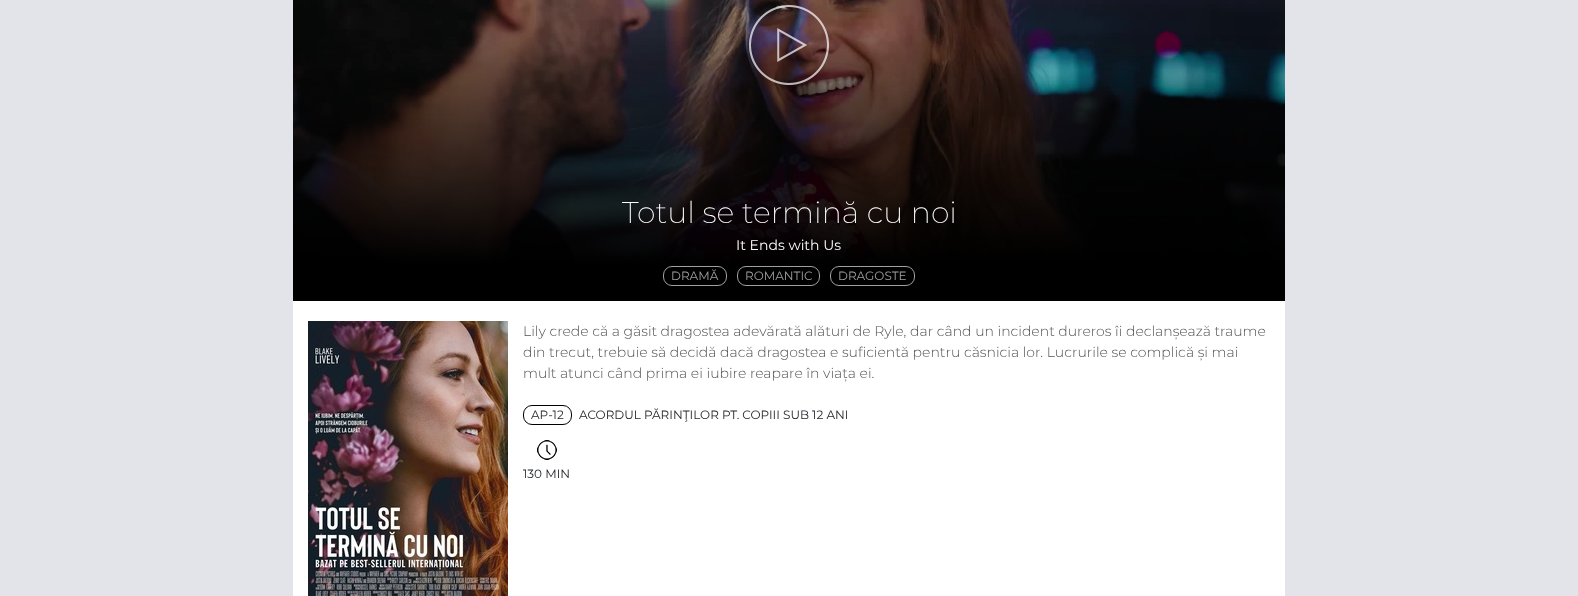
<svg xmlns="http://www.w3.org/2000/svg" width="1578" height="596" viewBox="0 0 1578 596">
  <rect width="100%" height="100%" fill="#e3e3ea"/>
  <path d="M293 301h992v295H293z" fill="#fff"/>
  <image x="293" y="0" width="992" height="266" href="img/1.png"/>
  <image x="749" y="5" width="80" height="80" href="img/2.png"/>
  <path d="M293 266h992v35H293z" fill="#000"/>
  <rect x="663.5" y="266.5" width="63" height="19" rx="8.5" fill="none" stroke="#a0a0a0"/>
  <rect x="737.5" y="266.5" width="82" height="19" rx="8.5" fill="none" stroke="#a0a0a0"/>
  <rect x="830.5" y="266.5" width="84" height="19" rx="8.5" fill="none" stroke="#a0a0a0"/>
  <image x="308" y="321" width="200" height="275" href="img/3.png"/>
  <rect x="523.5" y="405.5" width="48" height="19" rx="8.5" fill="none" stroke="#000"/>
  <image x="537" y="440" width="20" height="20" href="img/4.png"/>
  <text x="622" y="223" font-family="Montserrat" font-size="30" font-weight="200" fill="#fff">Totul se termină cu noi</text>
  <text x="736" y="250" font-family="Montserrat" font-size="14" fill="#fff">It Ends with Us</text>
  <g font-family="Montserrat" font-size="12" fill="#a0a0a0">
    <text x="671" y="280">DRAMĂ</text>
    <text x="745" y="280">ROMANTIC</text>
    <text x="838" y="280">DRAGOSTE</text>
  </g>
  <g font-family="Montserrat" font-size="14" font-weight="300" fill="#525252">
    <text x="523" y="336">Lily crede că a găsit dragostea adevărată alături de Ryle, dar când un incident dureros îi declanșează traume</text>
    <text x="523" y="357">din trecut, trebuie să decidă dacă dragostea e suficientă pentru căsnicia lor. Lucrurile se complică și mai</text>
    <text x="523" y="378">mult atunci când prima ei iubire reapare în viața ei.</text>
  </g>
  <g font-family="Montserrat" font-size="12" fill="#212529">
    <text x="531" y="419">AP-12</text>
    <text x="579" y="419">ACORDUL PĂRINŢILOR PT. COPIII SUB 12 ANI</text>
    <text x="523" y="478">130 MIN</text>
  </g>
</svg>
